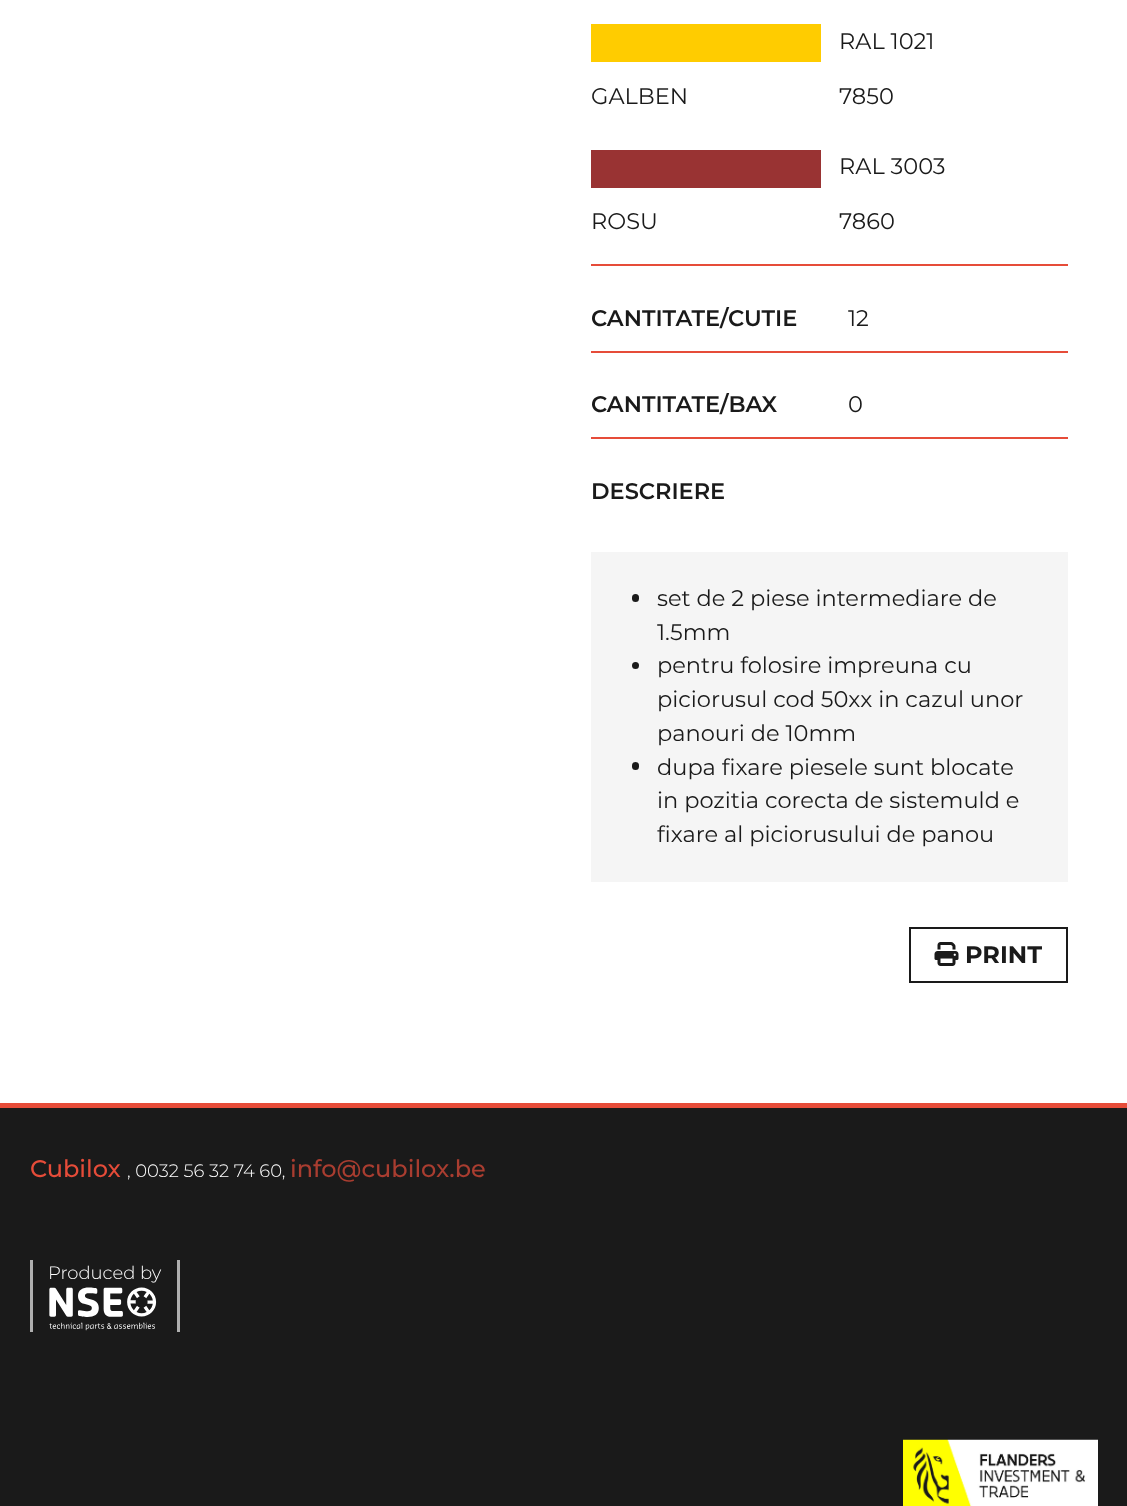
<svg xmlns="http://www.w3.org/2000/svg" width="1127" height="1506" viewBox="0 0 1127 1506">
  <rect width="100%" height="100%" fill="#fff"/>
  <path d="M591 264h477v2H591z" fill="#e64c39"/>
  <path d="M591 24h230v38H591z" fill="#fc0"/>
  <path d="M591 150h230v38H591z" fill="#933"/>
  <path d="M591 351h477v2H591z" fill="#e64c39"/>
  <path d="M591 437h477v2H591z" fill="#e64c39"/>
  <path d="M591 552h477v330H591z" fill="#f5f5f5"/>
  <rect x="632" y="594" width="7" height="8" rx="3.5" fill="#1a1a1a"/>
  <circle cx="635.5" cy="665.5" r="3.5" fill="#1a1a1a"/>
  <rect x="632" y="762" width="7" height="8" rx="3.5" fill="#1a1a1a"/>
  <path d="M910 928h157v54H910z" fill="none" stroke="#1a1a1a" stroke-width="2"/>
  <image x="934" y="942" width="25" height="24" href="img/1.png"/>
  <path d="M0 1108h1127v398H0z" fill="#1a1a1a"/>
  <path d="M0 1103h1127v5H0z" fill="#e64c39"/>
  <path d="M177 1260h3v72H177z" fill="#afafaf"/>
  <path d="M30 1260h3v72H30z" fill="#afafaf"/>
  <image x="49" y="1287" width="108" height="44" href="img/2.png"/>
  <image x="903" y="1439" width="195" height="67" href="img/3.png"/>
  <g font-family="Montserrat" font-size="22.5" fill="#1a1a1a">
    <text x="839" y="49">RAL 1021</text>
    <text x="591" y="104">GALBEN</text>
    <text x="839" y="104">7850</text>
    <text x="839" y="174">RAL 3003</text>
    <text x="591" y="229">ROSU</text>
    <text x="839" y="229">7860</text>
  </g>
  <text x="591" y="326" font-family="Montserrat" font-size="22.5" font-weight="600" fill="#1a1a1a">CANTITATE/CUTIE</text>
  <text x="848" y="326" font-family="Montserrat" font-size="22.5" fill="#1a1a1a">12</text>
  <text x="591" y="412" font-family="Montserrat" font-size="22.5" font-weight="600" fill="#1a1a1a">CANTITATE/BAX</text>
  <text x="848" y="412" font-family="Montserrat" font-size="22.5" fill="#1a1a1a">0</text>
  <text x="591" y="499" font-family="Montserrat" font-size="22.5" font-weight="600" fill="#1a1a1a">DESCRIERE</text>
  <g font-family="Montserrat" font-size="22.5" fill="#1a1a1a">
    <text x="657" y="606">set de 2 piese intermediare de</text>
    <text x="657" y="640">1.5mm</text>
    <text x="657" y="673">pentru folosire impreuna cu</text>
    <text x="657" y="707">piciorusul cod 50xx in cazul unor</text>
    <text x="657" y="741">panouri de 10mm</text>
    <text x="657" y="775">dupa fixare piesele sunt blocate</text>
    <text x="657" y="808">in pozitia corecta de sistemuld e</text>
    <text x="657" y="842">fixare al piciorusului de panou</text>
  </g>
  <text x="965" y="963" font-family="Montserrat" font-size="24" font-weight="bold" fill="#1a1a1a">PRINT</text>
  <text x="30" y="1177" font-family="Montserrat" font-size="24" font-weight="500" fill="#e64c39">Cubilox</text>
  <text x="127" y="1177" font-family="Montserrat" font-size="18" font-weight="300" fill="#fff">, 0032 56 32 74 60,</text>
  <text x="290" y="1177" font-family="Montserrat" font-size="24" font-weight="500" fill="#a93d30">info@cubilox.be</text>
  <text x="48" y="1279" font-family="Montserrat" font-size="18" font-weight="300" fill="#fff">Produced by</text>
</svg>
